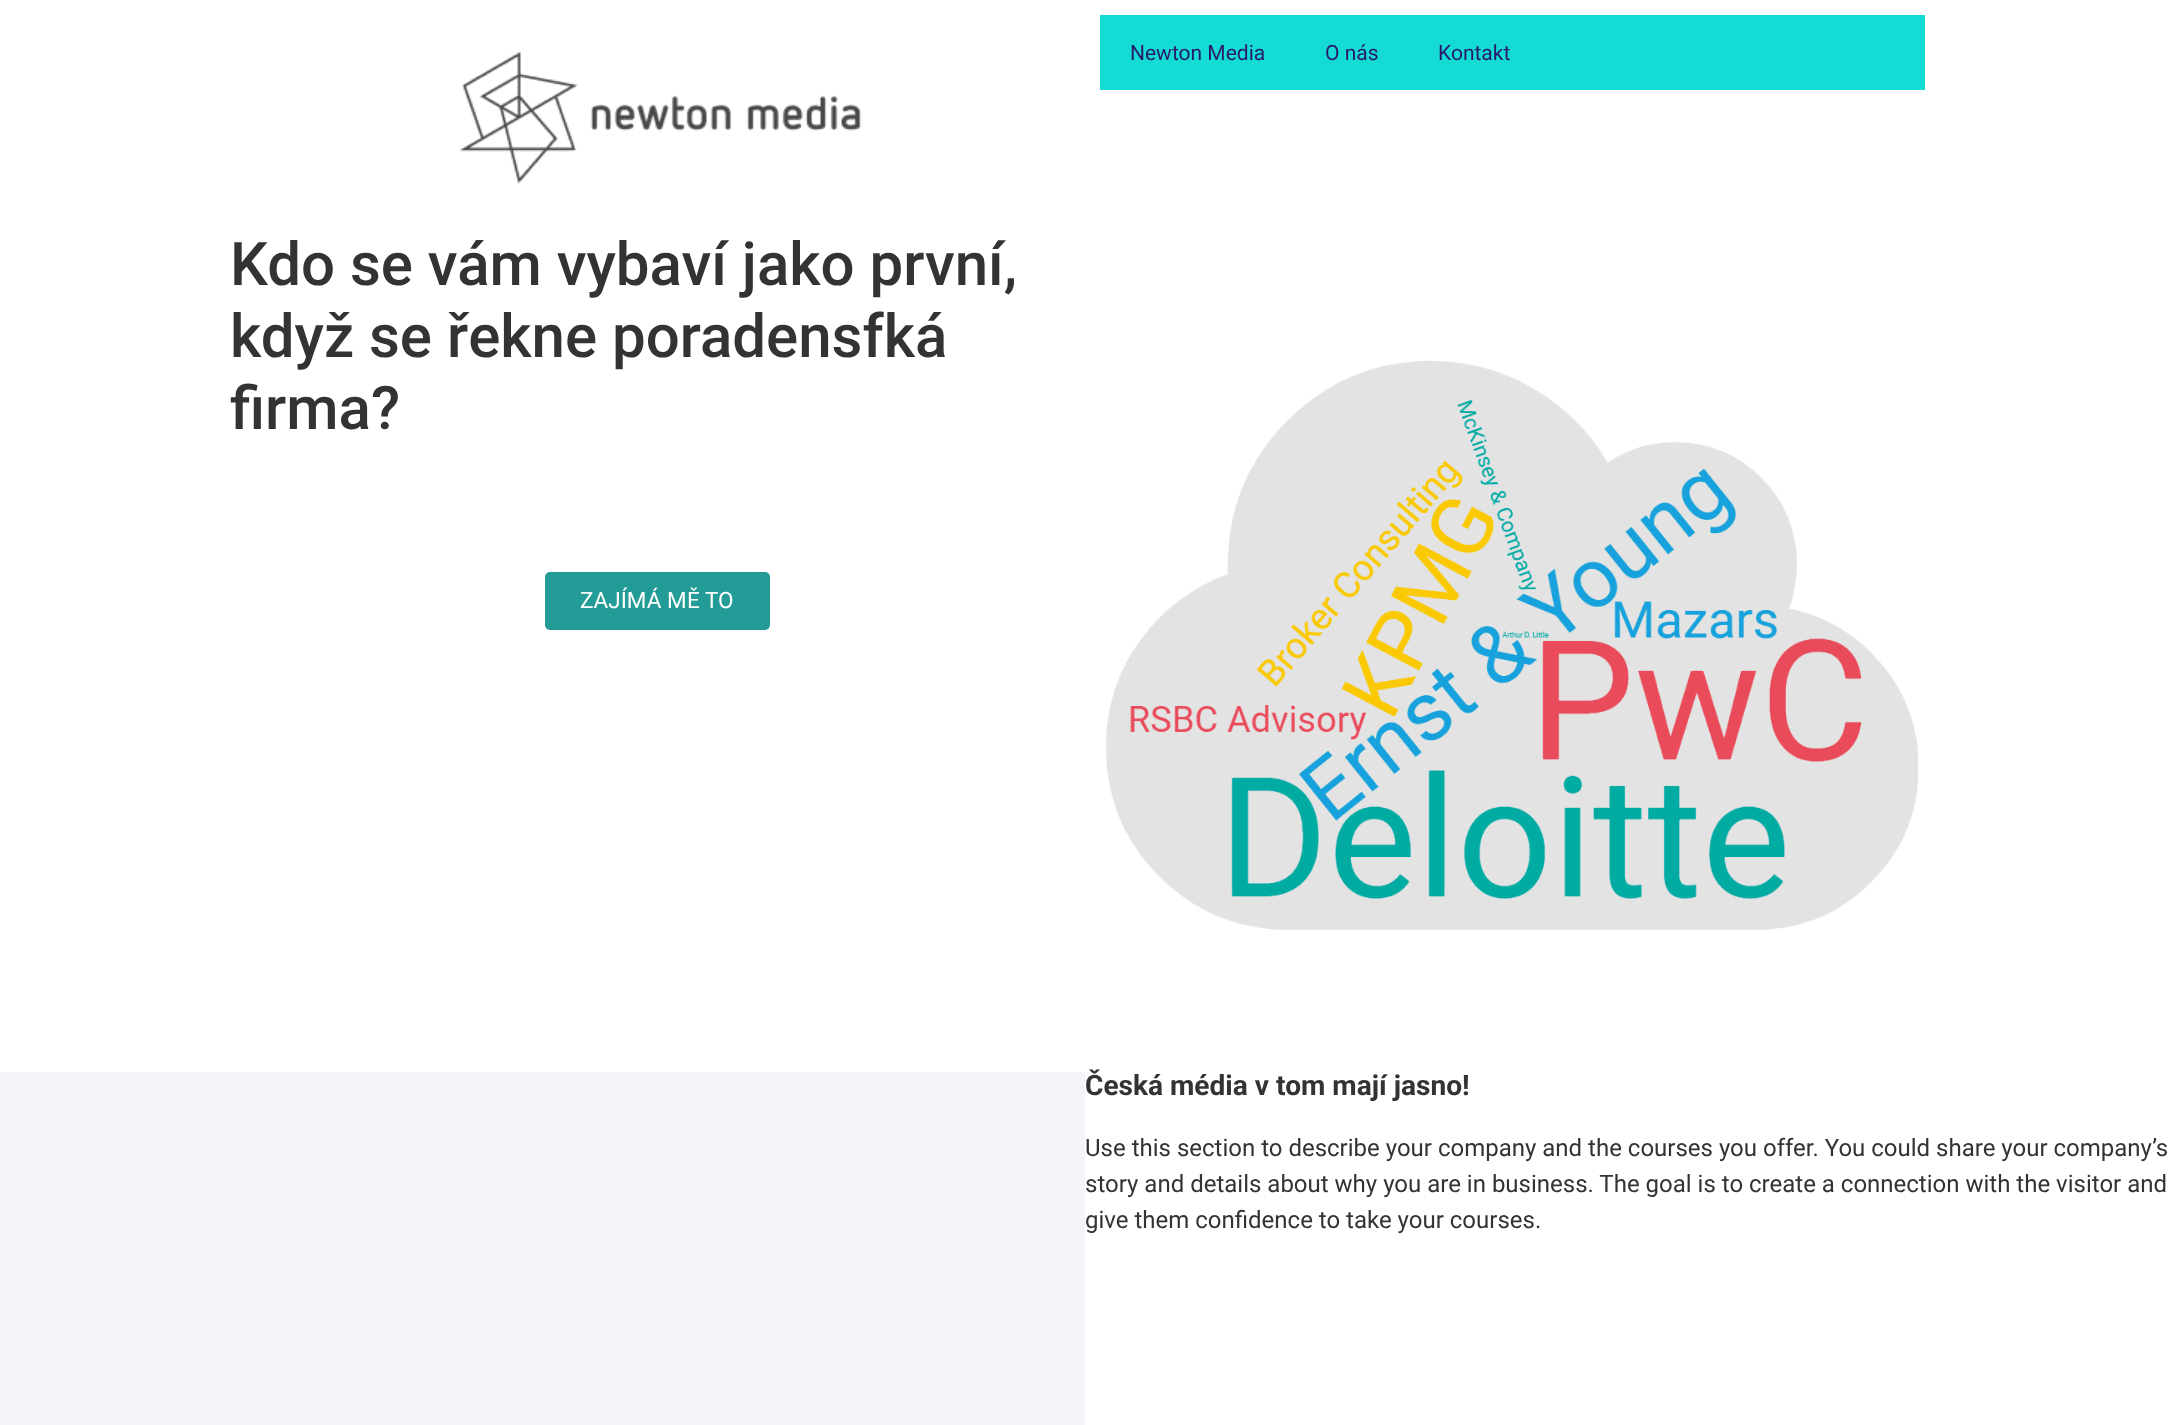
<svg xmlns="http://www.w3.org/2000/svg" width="2169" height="1425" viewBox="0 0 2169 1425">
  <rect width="100%" height="100%" fill="#fff"/>
  <image x="459" y="51" width="403" height="133" href="img/1.png"/>
  <path d="M1100 15h825v75H1100z" fill="#15dbd5"/>
  <rect x="545" y="572" width="225" height="58" rx="5" fill="#239c97"/>
  <image x="1106" y="360" width="812" height="570" href="img/2.png"/>
  <path d="M0 1072h1085v353H0z" fill="#f4f5f9"/>
  <g font-family="Roboto" font-size="21" fill="#2a1a6c">
    <text x="1130" y="60">Newton Media</text>
    <text x="1325" y="60">O nás</text>
    <text x="1438" y="60">Kontakt</text>
  </g>
  <g font-family="Roboto" font-size="60" font-weight="500" fill="#333">
    <text x="230" y="285">Kdo se vám vybaví jako první,</text>
    <text x="230" y="357">když se řekne poradensfká</text>
    <text x="230" y="429">firma?</text>
  </g>
  <text x="580" y="608" font-family="Roboto" font-size="22.5" fill="#fff">ZAJÍMÁ M</text>
  <text x="687" y="608" font-family="'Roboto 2'" font-size="22.5" fill="#fff">Ě</text>
  <text x="705" y="608" font-family="Roboto" font-size="22.5" fill="#fff">TO</text>
  <text x="1085" y="1095" font-family="Roboto" font-size="28.1" font-weight="bold" fill="#333">Česká média v tom mají jasno!</text>
  <g font-family="Roboto" font-size="24" fill="#333">
    <text x="1085" y="1156">Use this section to describe your company and the courses you offer. You could share your company’s</text>
    <text x="1085" y="1192">story and details about why you are in business. The goal is to create a connection with the visitor and</text>
    <text x="1085" y="1228">give them confidence to take your courses.</text>
  </g>
</svg>
